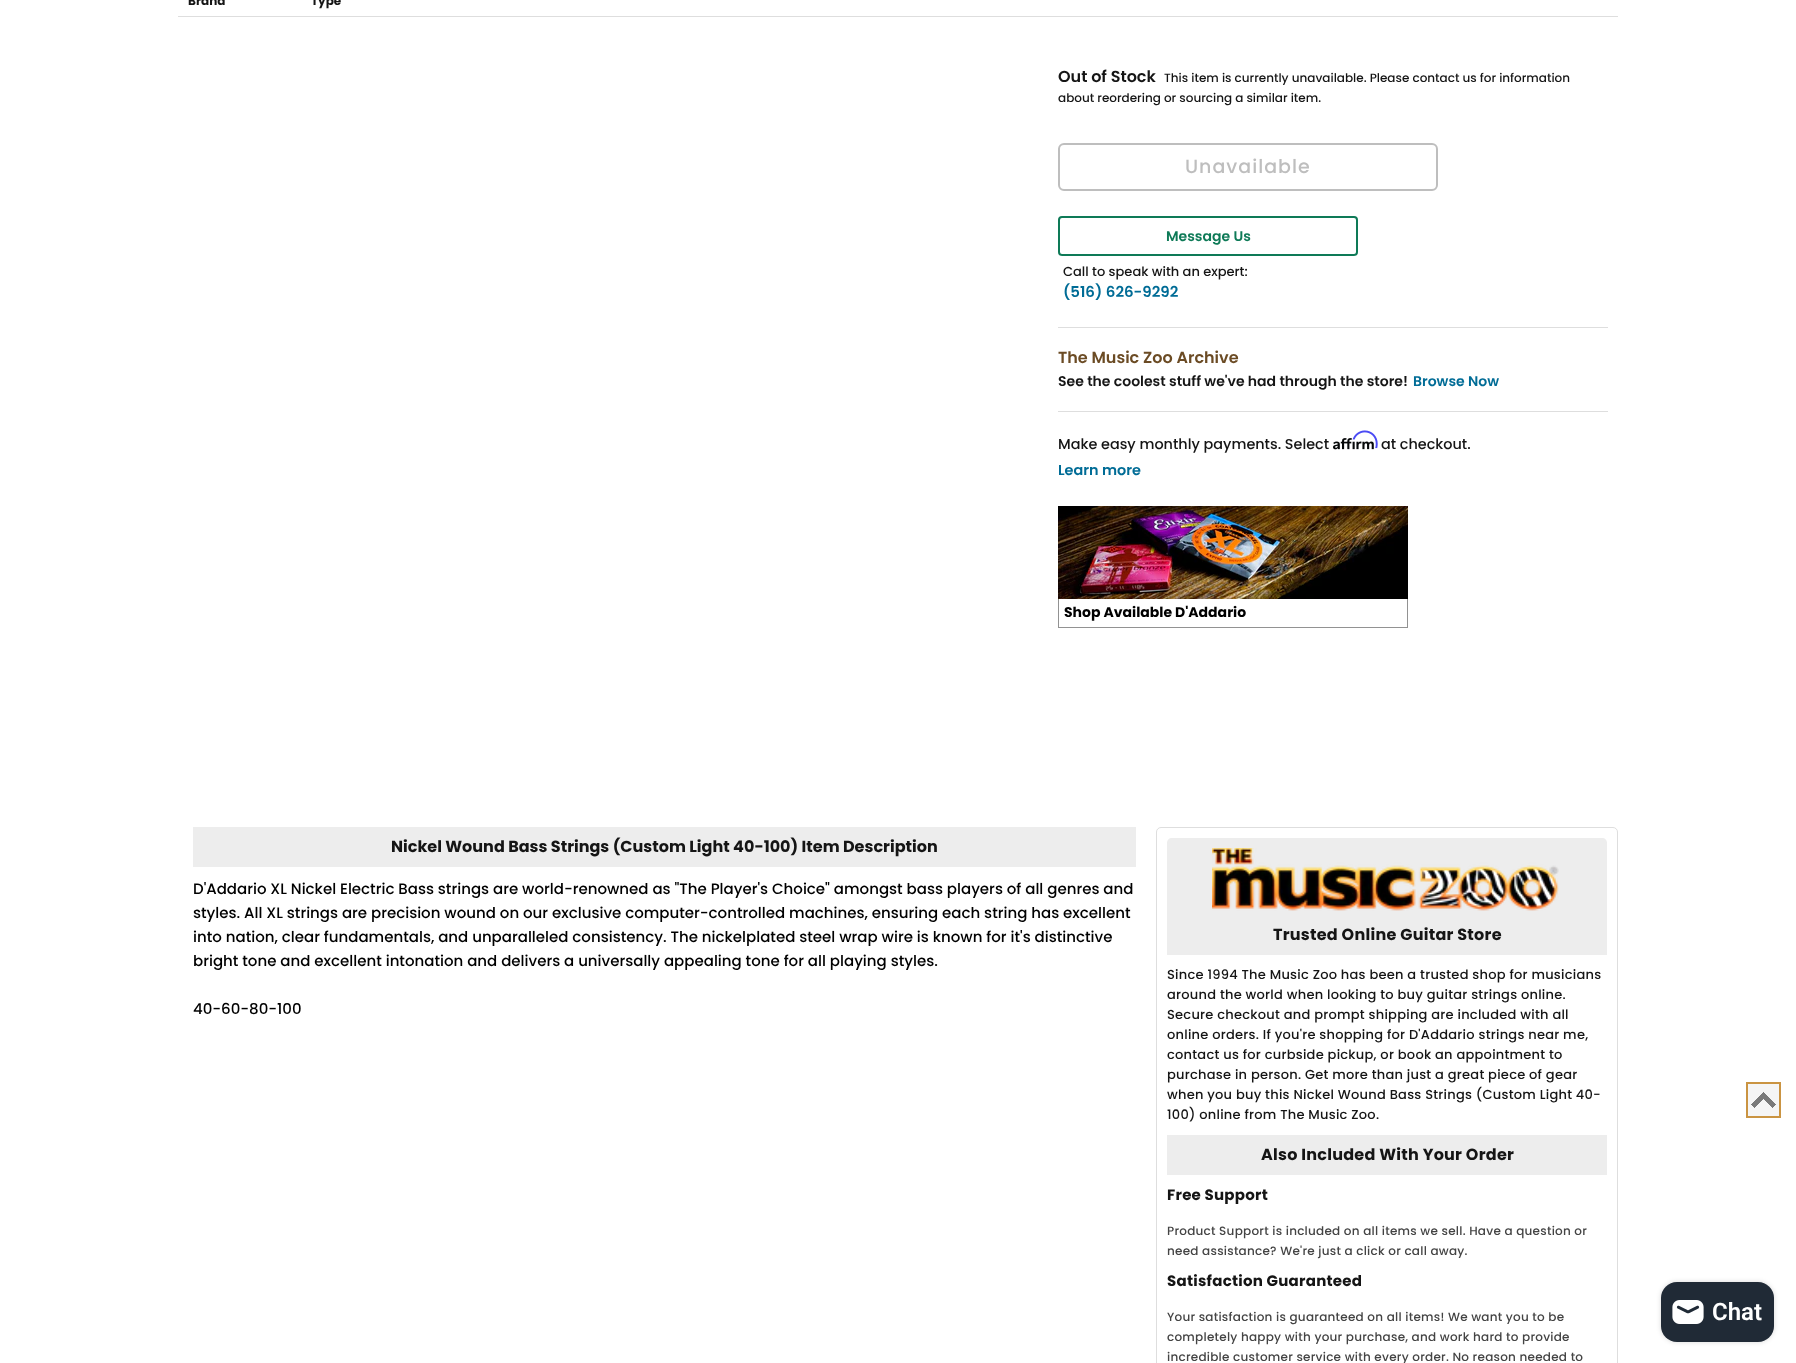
<svg xmlns="http://www.w3.org/2000/svg" width="1796" height="1363" viewBox="0 0 1796 1363">
  <rect width="100%" height="100%" fill="#fff"/>
  <path d="M178 16h1440v1H178z" fill="#dedede"/>
  <rect x="1059" y="144" width="378" height="46" rx="5" fill="none" stroke="#bebebe" stroke-width="2"/>
  <rect x="1059" y="217" width="298" height="38" rx="3" fill="none" stroke="#0e7a57" stroke-width="2"/>
  <path d="M1058 327h550v1H1058z" fill="#dedede"/>
  <path d="M1058 411h550v1H1058z" fill="#dedede"/>
  <image x="1333" y="438" width="41" height="12" href="img/2.png"/>
  <image x="1352" y="430" width="26" height="19" href="img/1.png"/>
  <image x="1058" y="506" width="350" height="93" href="img/3.png"/>
  <path d="M1407 599h1v29H1407z" fill="#929292"/>
  <path d="M1058 627h350v1H1058z" fill="#929292"/>
  <path d="M1058 599h1v29H1058z" fill="#929292"/>
  <path d="M193 827h943v40H193z" fill="#ededed"/>
  <rect x="1156.5" y="827.5" width="461" height="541" rx="4.5" fill="none" stroke="#dedede"/>
  <path d="M1172 838H1602C1605 838 1607 840 1607 843V915H1167V843C1167 840 1169 838 1172 838Z" fill="#ededed"/>
  <image x="1212" y="848" width="347" height="63" href="img/4.png"/>
  <path d="M1167 915h440v40H1167z" fill="#ededed"/>
  <path d="M1167 1135h440v40H1167z" fill="#ededed"/>
  <path d="M1748 1084h31v32H1748z" fill="#f5f5f5"/>
  <image x="1751" y="1092" width="25" height="16" href="img/5.png"/>
  <path d="M1747 1083h33v34H1747z" fill="none" stroke="#ca9442" stroke-width="2"/>
  <rect x="1661" y="1282" width="113" height="60" rx="16" fill="#00000026" filter="blur(2.5px)"/>
  <rect x="1661" y="1282" width="113" height="60" rx="16" fill="#202a36"/>
  <image x="1672" y="1300" width="32" height="24" href="img/6.png"/>
  <g font-family="Poppins" font-size="12" font-weight="bold" fill="#151515">
    <text x="188" y="5">Brand</text>
    <text x="311" y="5">Type</text>
  </g>
  <text x="1058" y="82" font-family="Poppins" font-size="16" font-weight="600" fill="#151515">Out of Stock</text>
  <g font-family="Poppins" font-size="12" font-weight="500" fill="#151515">
    <text x="1164" y="82">This item is currently unavailable. Please contact us for information</text>
    <text x="1058" y="102">about reordering or sourcing a similar item.</text>
  </g>
  <text x="1185" y="173" font-family="Poppins" font-size="19" font-weight="500" letter-spacing="1" fill="#bebebe">Unavailable</text>
  <text x="1166" y="241" font-family="Poppins" font-size="14" font-weight="600" fill="#0e7a57">Message Us</text>
  <text x="1063" y="276" font-family="Poppins" font-size="13" font-weight="500" fill="#151515">Call to speak with an expert:</text>
  <text x="1063" y="297" font-family="Poppins" font-size="15" font-weight="600" fill="#006c96">(516) 626-9292</text>
  <text x="1058" y="363" font-family="Poppins" font-size="16" font-weight="600" fill="#6b4b24">The Music Zoo Archive</text>
  <text x="1058" y="386" font-family="Poppins" font-size="14" font-weight="600" fill="#151515">See the coolest stuff we've had through the store!</text>
  <text x="1413" y="386" font-family="Poppins" font-size="14" font-weight="600" fill="#006c96">Browse Now</text>
  <g font-family="Poppins" font-size="14.4" font-weight="500" fill="#151515">
    <text x="1058" y="449">Make easy monthly payments. Select</text>
    <text x="1381" y="449">at checkout.</text>
  </g>
  <text x="1058" y="475" font-family="Poppins" font-size="14.4" font-weight="600" fill="#006c96">Learn more</text>
  <text x="1064" y="617" font-family="Poppins" font-size="14" font-weight="bold" fill="#000">Shop Available D'Addario</text>
  <text x="391" y="852" font-family="Poppins" font-size="16" font-weight="bold" fill="#151515">Nickel Wound Bass Strings (Custom Light 40-100) Item Description</text>
  <g font-family="Poppins" font-size="15" font-weight="500" fill="#000">
    <text x="193" y="894">D'Addario XL Nickel Electric Bass strings are world-renowned as "The Player's Choice" amongst bass players of all genres and</text>
    <text x="193" y="918">styles. All XL strings are precision wound on our exclusive computer-controlled machines, ensuring each string has excellent</text>
    <text x="193" y="942">into nation, clear fundamentals, and unparalleled consistency. The nickelplated steel wrap wire is known for it's distinctive</text>
    <text x="193" y="966">bright tone and excellent intonation and delivers a universally appealing tone for all playing styles.</text>
    <text x="193" y="1014">40-60-80-100</text>
  </g>
  <text x="1273" y="940" font-family="Poppins" font-size="16" font-weight="bold" letter-spacing="0.25" fill="#151515">Trusted Online Guitar Store</text>
  <g font-family="Poppins" font-size="13" font-weight="500" letter-spacing="0.25" fill="#151515">
    <text x="1167" y="979">Since 1994 The Music Zoo has been a trusted shop for musicians</text>
    <text x="1167" y="999">around the world when looking to buy guitar strings online.</text>
    <text x="1167" y="1019">Secure checkout and prompt shipping are included with all</text>
    <text x="1167" y="1039">online orders. If you're shopping for D'Addario strings near me,</text>
    <text x="1167" y="1059">contact us for curbside pickup, or book an appointment to</text>
    <text x="1167" y="1079">purchase in person. Get more than just a great piece of gear</text>
    <text x="1167" y="1099">when you buy this Nickel Wound Bass Strings (Custom Light 40-</text>
    <text x="1167" y="1119">100) online from The Music Zoo.</text>
  </g>
  <text x="1261" y="1160" font-family="Poppins" font-size="16" font-weight="bold" letter-spacing="0.25" fill="#151515">Also Included With Your Order</text>
  <text x="1167" y="1200" font-family="Poppins" font-size="15" font-weight="bold" letter-spacing="0.25" fill="#151515">Free Support</text>
  <g font-family="Poppins" font-size="12" font-weight="500" letter-spacing="0.25" fill="#444">
    <text x="1167" y="1235">Product Support is included on all items we sell. Have a question or</text>
    <text x="1167" y="1255">need assistance? We're just a click or call away.</text>
  </g>
  <text x="1167" y="1286" font-family="Poppins" font-size="15" font-weight="bold" letter-spacing="0.25" fill="#151515">Satisfaction Guaranteed</text>
  <g font-family="Poppins" font-size="12" font-weight="500" letter-spacing="0.25" fill="#444">
    <text x="1167" y="1321">Your satisfaction is guaranteed on all items! We want you to be</text>
    <text x="1167" y="1341">completely happy with your purchase, and work hard to provide</text>
    <text x="1167" y="1361">incredible customer service with every order. No reason needed to</text>
  </g>
  <text x="1712" y="1320" font-family="Roboto" font-size="24" font-weight="600" fill="#fff">Chat</text>
</svg>
